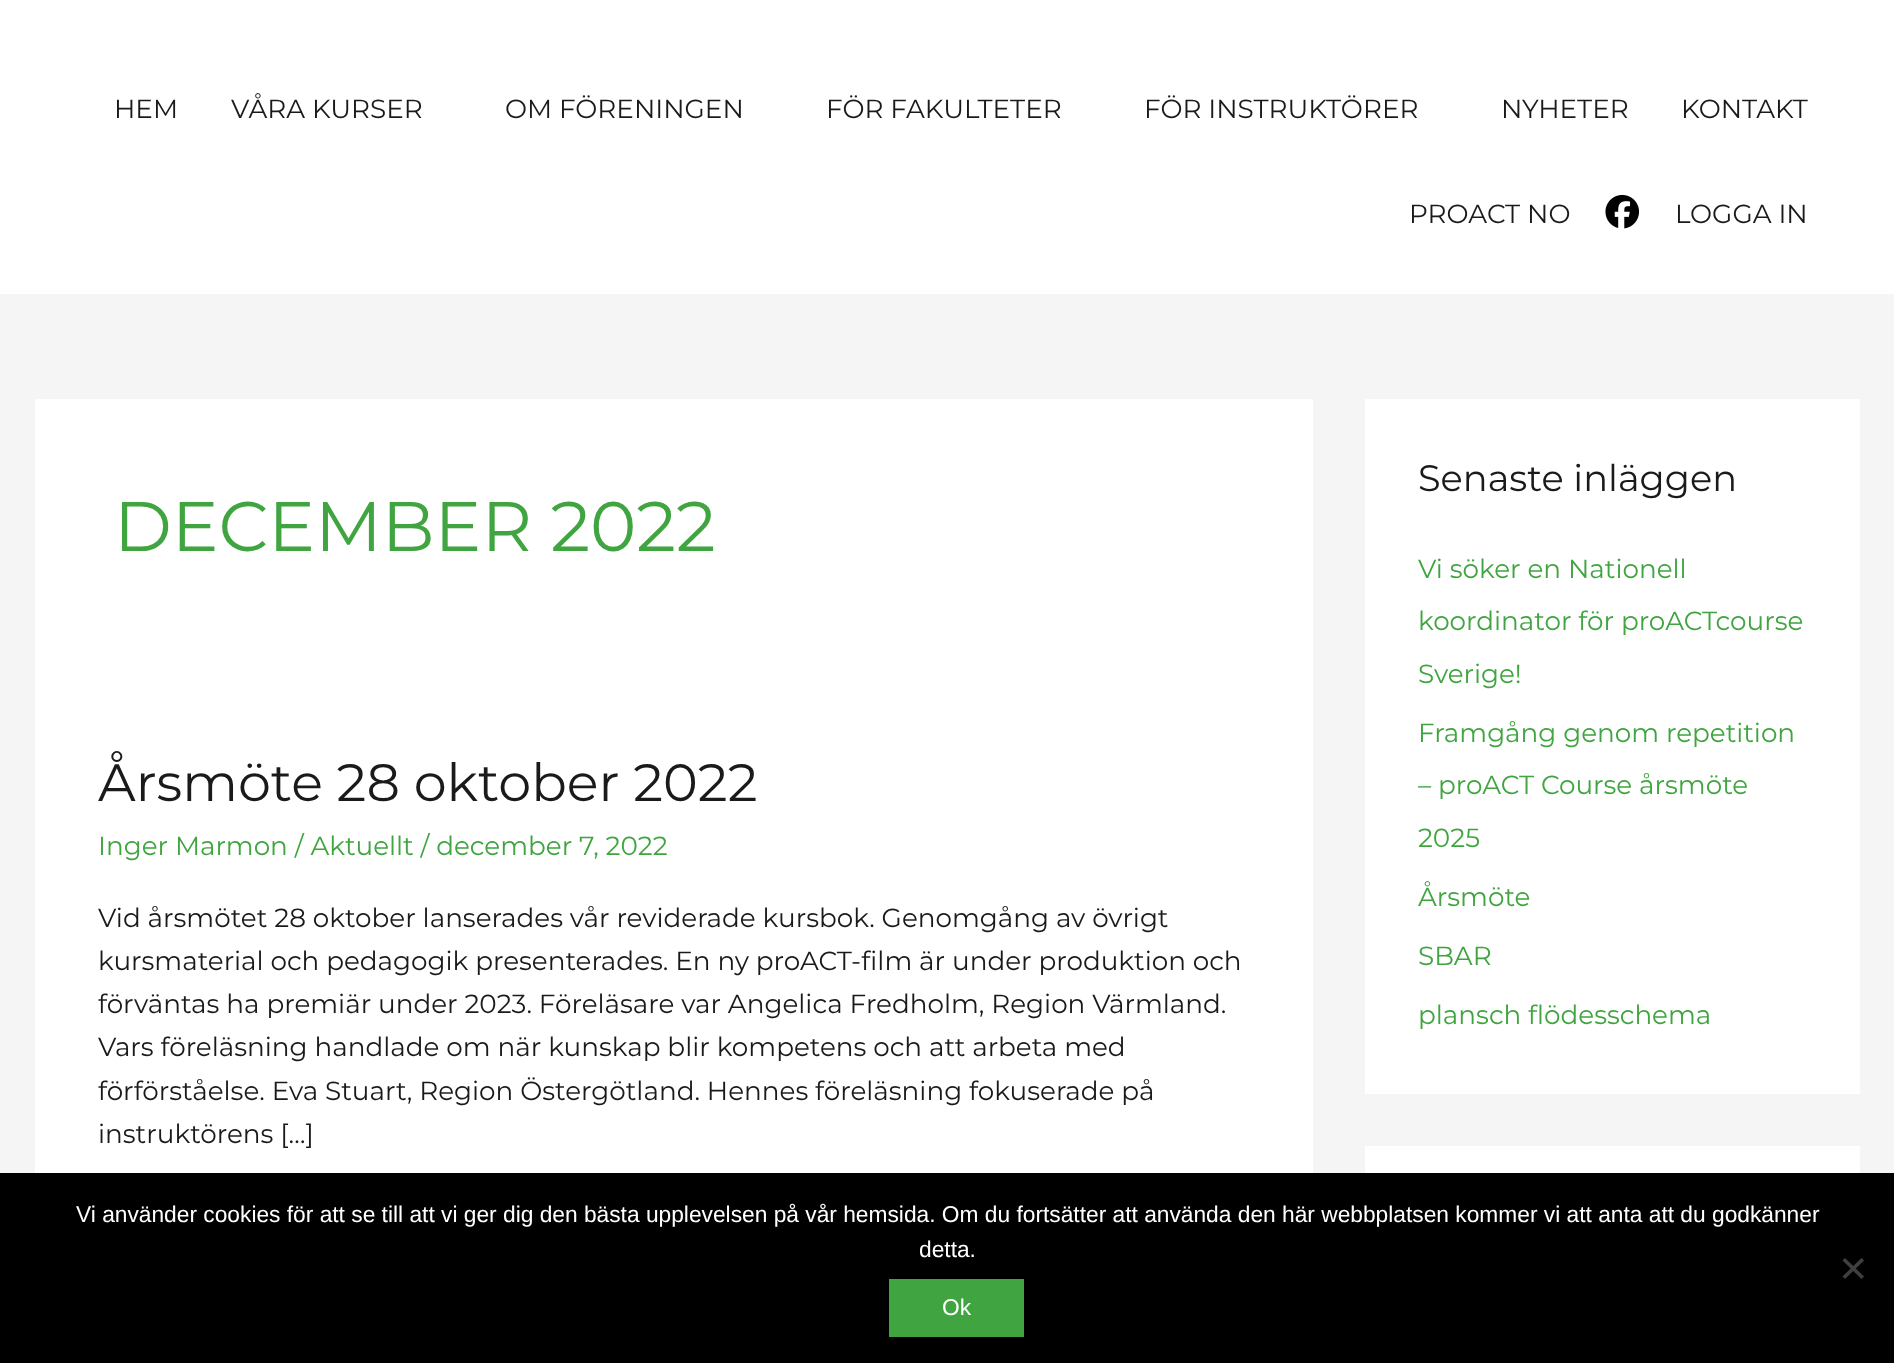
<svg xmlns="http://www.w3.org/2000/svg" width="1894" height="1363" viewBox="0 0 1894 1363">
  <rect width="100%" height="100%" fill="#f5f5f5"/>
  <path d="M0 0h1894v294H0z" fill="#fff"/>
  <image x="1605" y="194" width="35" height="35" href="img/1.png"/>
  <path d="M35 399h1278v774H35z" fill="#fff"/>
  <path d="M1365 399h495v695H1365z" fill="#fff"/>
  <path d="M1365 1146h495v27H1365z" fill="#fff"/>
  <path d="M0 1173h1894v190H0z" fill="#000"/>
  <path d="M1861.5 1258L1864 1260.5L1845 1279L1842.5 1276.5Z" fill="#404040"/>
  <path d="M1842.5 1260.5L1845 1258L1864 1276.5L1861.5 1279Z" fill="#404040"/>
  <path d="M889 1279h135v58H889z" fill="#40a540"/>
  <g font-family="Montserrat" font-size="26.25" fill="#1a1a1a">
    <text x="114" y="118">HEM</text>
    <text x="231" y="118">VÅRA KURSER</text>
    <text x="505" y="118">OM FÖRENINGEN</text>
    <text x="826" y="118">FÖR FAKULTETER</text>
    <text x="1144" y="118">FÖR INSTRUKTÖRER</text>
    <text x="1501" y="118">NYHETER</text>
    <text x="1681" y="118">KONTAKT</text>
    <text x="1409" y="223">PROACT NO</text>
    <text x="1675" y="223">LOGGA IN</text>
  </g>
  <text x="114" y="551" font-family="Montserrat" font-size="70" fill="#40a540">DECEMBER 2022</text>
  <text x="98" y="801" font-family="Montserrat" font-size="52.5" fill="#1a1a1a">Årsmöte 28 oktober 2022</text>
  <text x="98" y="855" font-family="Montserrat" font-size="26.25" fill="#40a540">Inger Marmon / Aktuellt / december 7, 2022</text>
  <g font-family="Montserrat" font-size="26.25" fill="#1a1a1a">
    <text x="98" y="927">Vid årsmötet 28 oktober lanserades vår reviderade kursbok. Genomgång av övrigt</text>
    <text x="98" y="970">kursmaterial och pedagogik presenterades. En ny proACT-film är under produktion och</text>
    <text x="98" y="1013">förväntas ha premiär under 2023. Föreläsare var Angelica Fredholm, Region Värmland.</text>
    <text x="98" y="1056">Vars föreläsning handlade om när kunskap blir kompetens och att arbeta med</text>
    <text x="98" y="1100">förförståelse. Eva Stuart, Region Östergötland. Hennes föreläsning fokuserade på</text>
    <text x="98" y="1143">instruktörens […]</text>
  </g>
  <text x="1418" y="491" font-family="Montserrat" font-size="36.75" fill="#1a1a1a">Senaste inläggen</text>
  <g font-family="Montserrat" font-size="26.25" fill="#40a540">
    <text x="1418" y="578">Vi söker en Nationell</text>
    <text x="1418" y="630">koordinator för proACTcourse</text>
    <text x="1418" y="683">Sverige!</text>
    <text x="1418" y="742">Framgång genom repetition</text>
    <text x="1418" y="794">– proACT Course årsmöte</text>
    <text x="1418" y="847">2025</text>
    <text x="1418" y="906">Årsmöte</text>
    <text x="1418" y="965">SBAR</text>
    <text x="1418" y="1024">plansch flödesschema</text>
  </g>
  <g font-family="Liberation Sans" font-size="22.75" fill="#fff">
    <text x="76" y="1222">Vi använder cookies för att se till att vi ger dig den bästa upplevelsen på vår hemsida. Om du fortsätter att använda den här webbplatsen kommer vi att anta att du godkänner</text>
    <text x="919" y="1257">detta.</text>
    <text x="942" y="1315">Ok</text>
  </g>
</svg>
